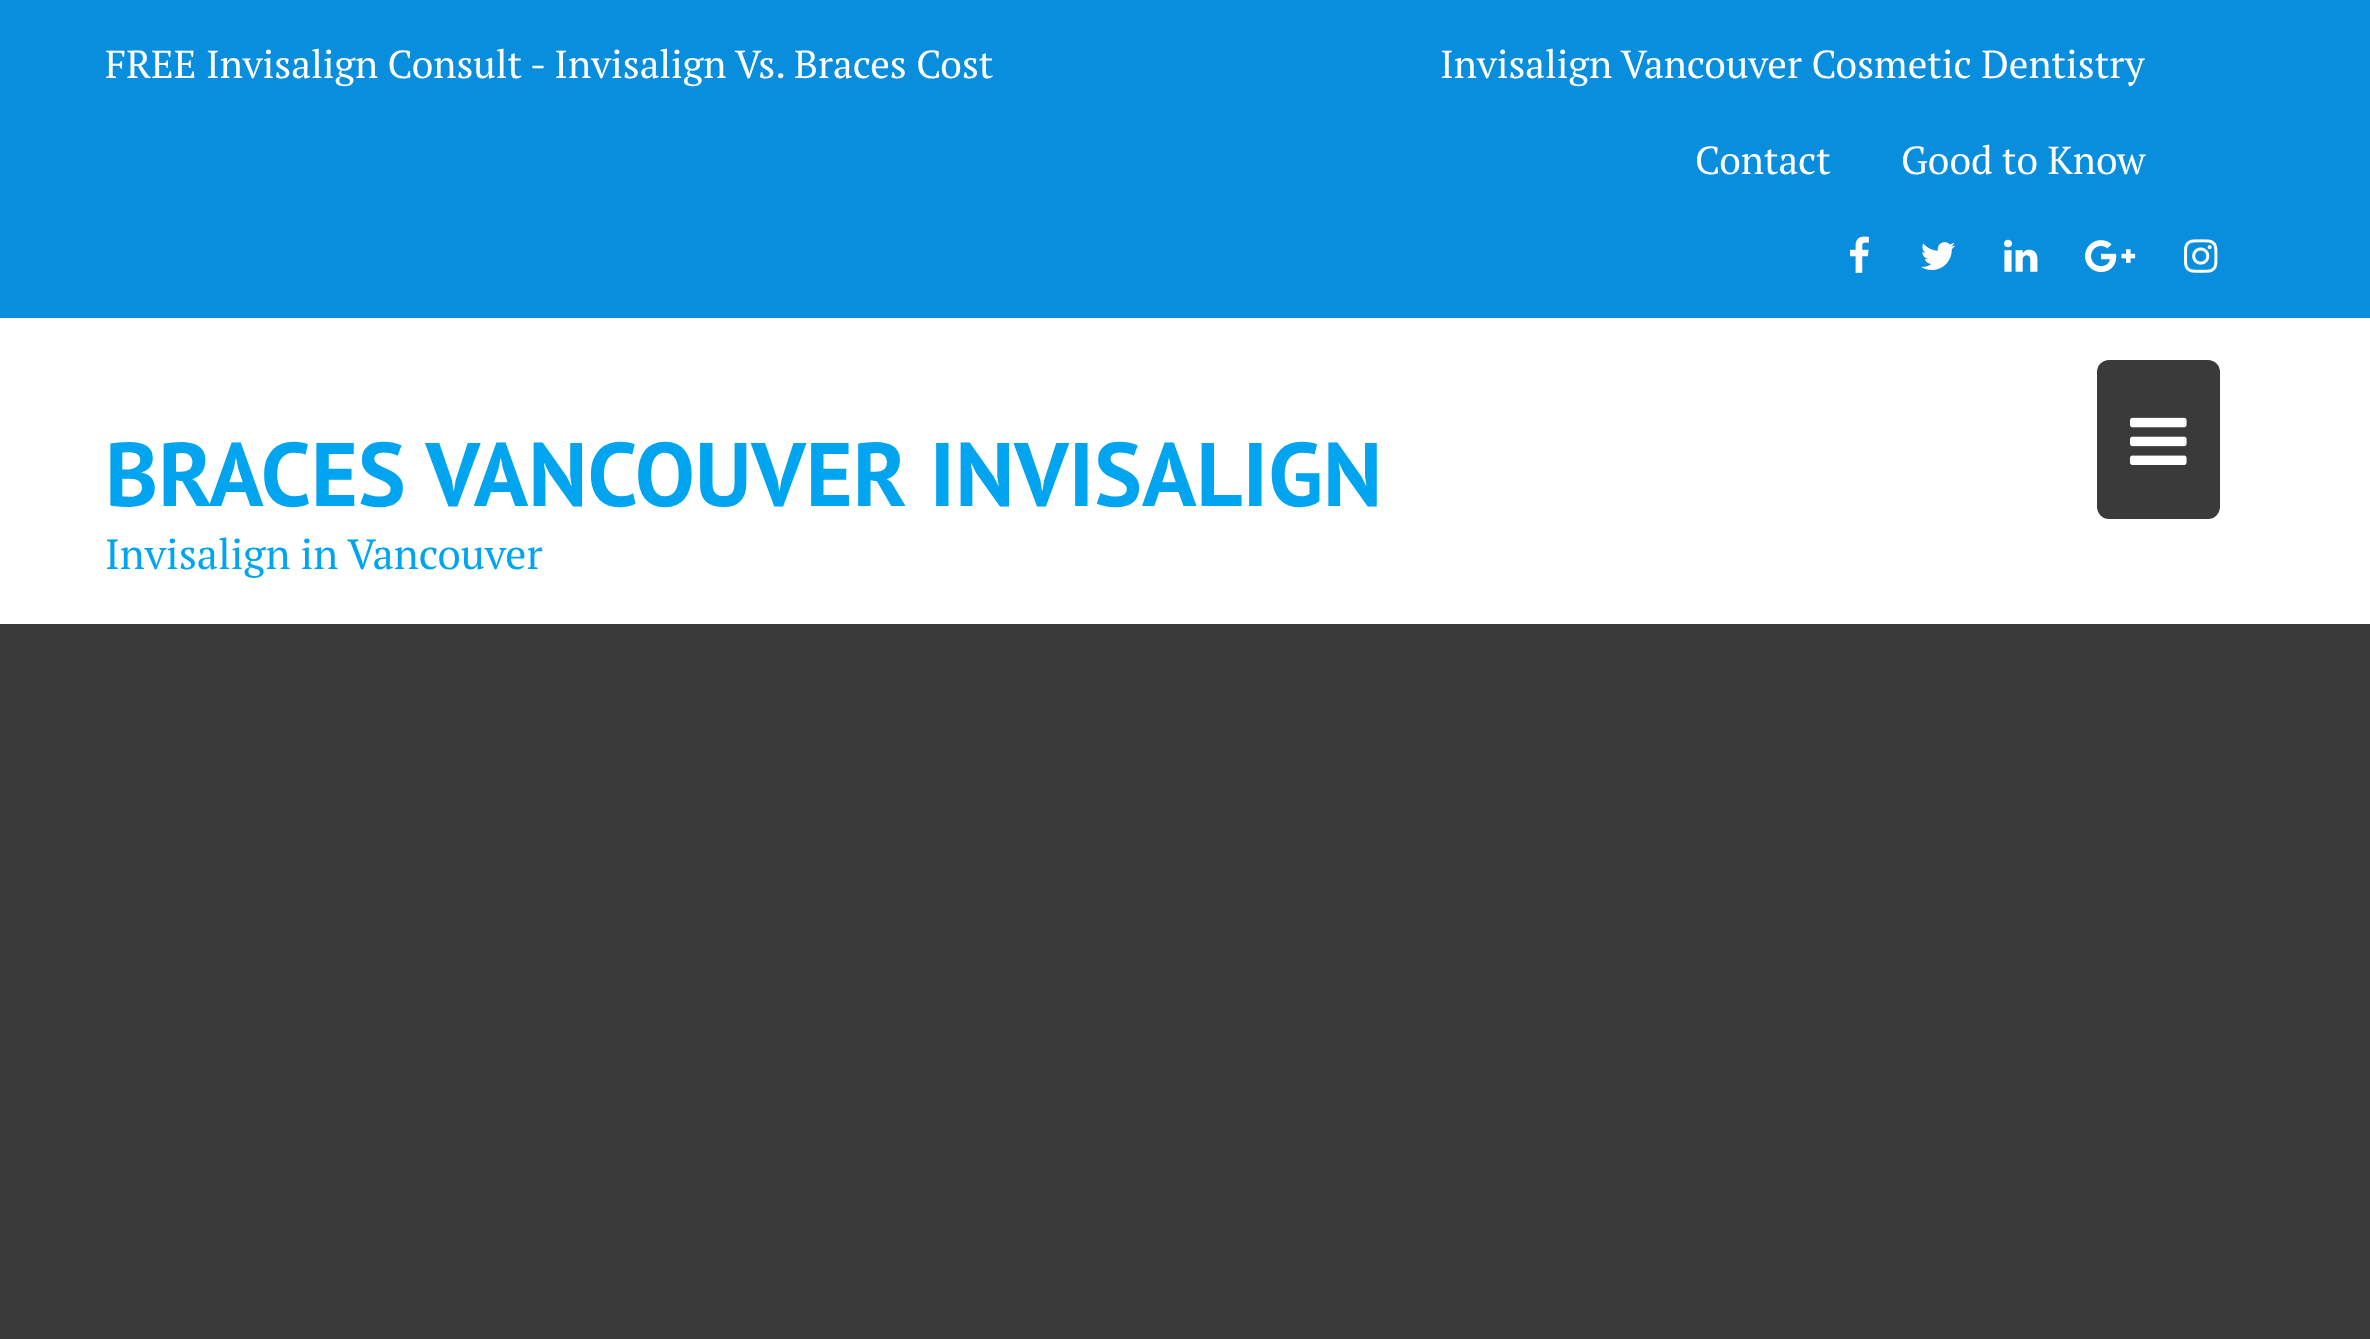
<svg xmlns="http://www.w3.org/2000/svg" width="2370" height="1339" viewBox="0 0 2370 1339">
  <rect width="100%" height="100%" fill="#fff"/>
  <path d="M0 0h2370v318H0z" fill="#088edd"/>
  <image x="1850" y="236" width="19" height="37" href="img/1.png"/>
  <image x="1921" y="242" width="35" height="28" href="img/2.png"/>
  <image x="2004" y="239" width="34" height="33" href="img/3.png"/>
  <image x="2085" y="240" width="51" height="32" href="img/4.png"/>
  <image x="2184" y="239" width="34" height="34" href="img/5.png"/>
  <rect x="2097" y="360" width="123" height="159" rx="12" fill="#3a3a3a"/>
  <image x="2130" y="417" width="57" height="48" href="img/6.png"/>
  <path d="M0 624h2370v715H0z" fill="#3a3a3a"/>
  <g font-family="PT Serif" font-size="39" fill="#fff">
    <text x="105" y="78">FREE Invisalign Consult - Invisalign Vs. Braces Cost</text>
    <text x="1440" y="78">Invisalign Vancouver Cosmetic Dentistry</text>
    <text x="1695" y="174">Contact</text>
    <text x="1901" y="174">Good to Know</text>
  </g>
  <text x="105" y="506" font-family="PT Sans" font-size="90" font-weight="bold" fill="#00a4ef">BRACES VANCOUVER INVISALIGN</text>
  <text x="105" y="569" font-family="PT Serif" font-size="42" fill="#00a4ef">Invisalign in Vancouver</text>
</svg>
